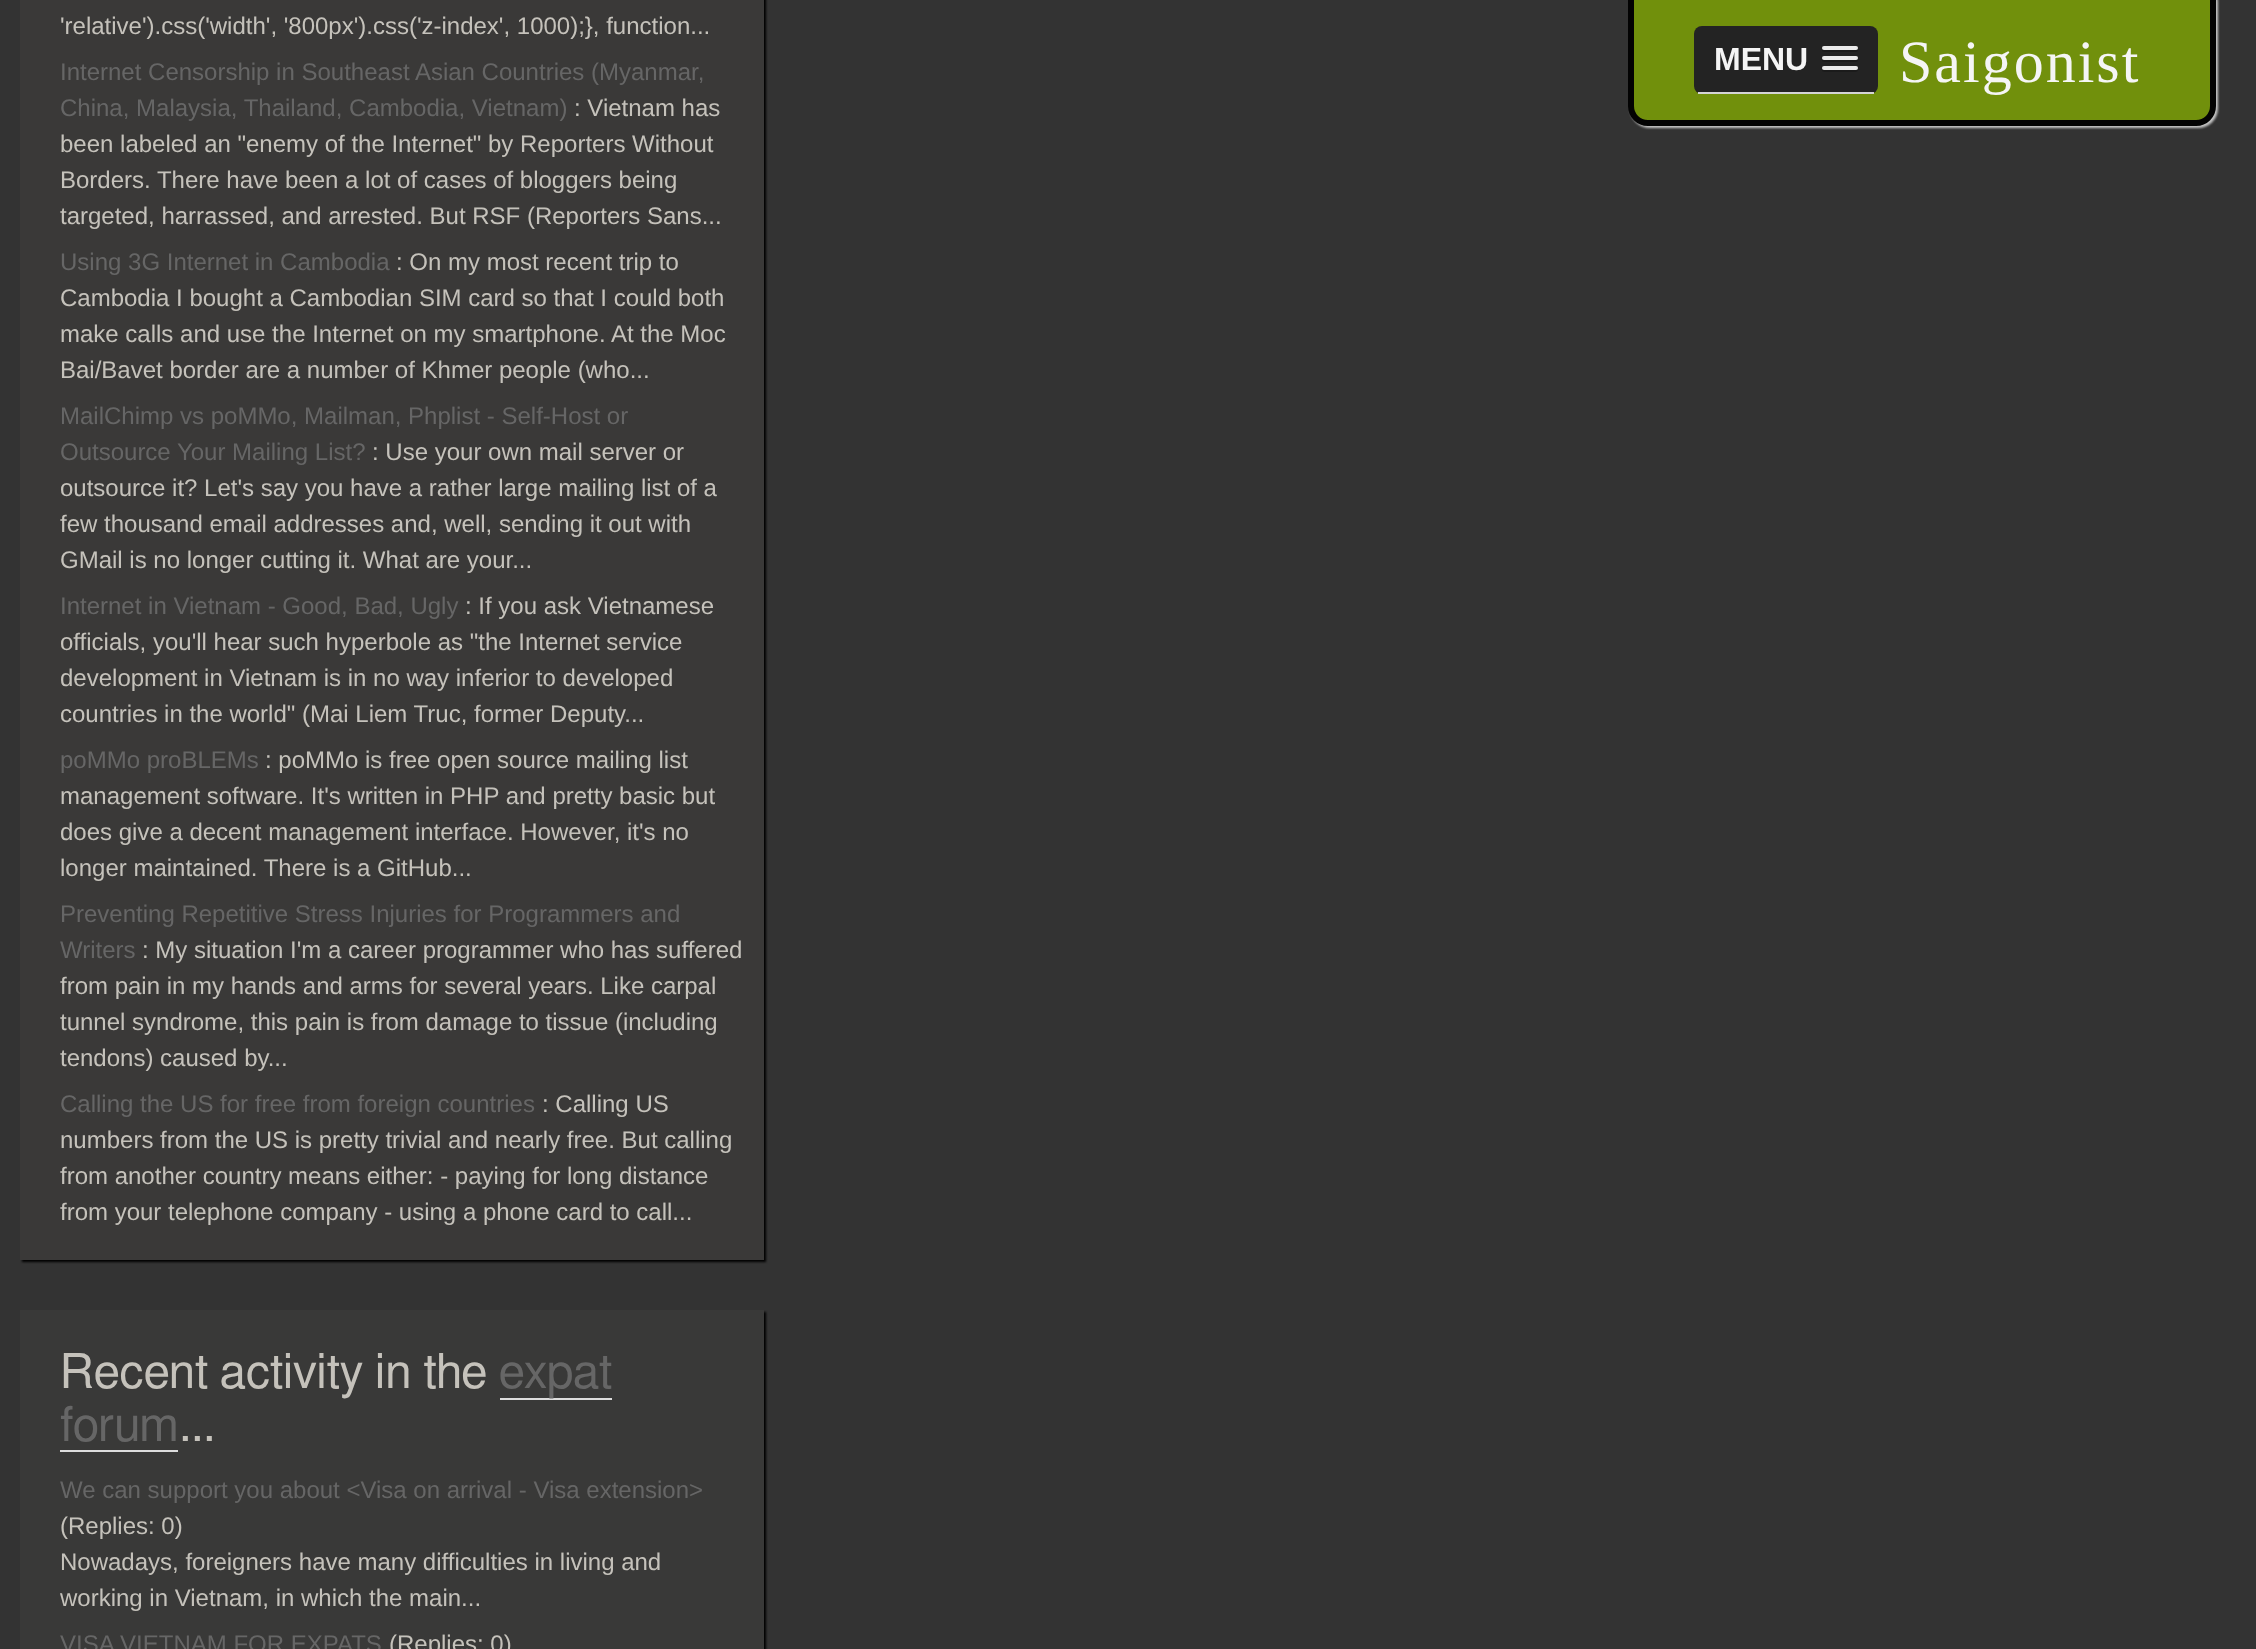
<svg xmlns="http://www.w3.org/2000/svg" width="2256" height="1649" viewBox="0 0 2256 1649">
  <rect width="100%" height="100%" fill="#333"/>
  <path d="M22 -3h744v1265H22z" fill="#000" filter="blur(1px)"/>
  <path d="M20 0h744v1260H20z" fill="#3a3938"/>
  <path d="M22 1312h744v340H22z" fill="#000" filter="blur(1px)"/>
  <path d="M20 1310h744v339H20z" fill="#393938"/>
  <path d="M500 1398h112v2H500z" fill="#ddd"/>
  <path d="M60 1450h118v2H60z" fill="#ddd"/>
  <rect x="1630" y="-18" width="588" height="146" rx="20" fill="#c4c4c4" filter="blur(1px)"/>
  <path d="M1631-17H2213V106C2213 115.5 2205.5 123 2196 123H1648C1638.5 123 1631 115.5 1631 106Z" fill="#71900c" stroke="#030303" stroke-width="6"/>
  <rect x="1694" y="26" width="184" height="68" rx="8" fill="#232323"/>
  <path d="M1698 92h176v2H1698z" fill="#d5d5d5"/>
  <path d="M1822.5 49C1820 53 1829 52 1829.5 52H1850.5C1851 52 1860 53 1857.5 49C1857.5 49.5 1856.5 50 1856 50H1824C1823.5 50 1822.5 49.5 1822.5 49Z" fill="#1b1b1b"/>
  <rect x="1822" y="46" width="36" height="4" rx="2" fill="#ebebeb"/>
  <path d="M1822.5 59C1820 63 1829 62 1829.5 62H1850.5C1851 62 1860 63 1857.5 59C1857.5 59.5 1856.5 60 1856 60H1824C1823.5 60 1822.5 59.5 1822.5 59Z" fill="#1b1b1b"/>
  <rect x="1822" y="56" width="36" height="4" rx="2" fill="#ebebeb"/>
  <path d="M1822.5 69C1820 73 1829 72 1829.5 72H1850.5C1851 72 1860 73 1857.5 69C1857.5 69.5 1856.5 70 1856 70H1824C1823.5 70 1822.5 69.5 1822.5 69Z" fill="#1b1b1b"/>
  <rect x="1822" y="66" width="36" height="4" rx="2" fill="#ebebeb"/>
  <text x="60" y="34" font-family="Liberation Sans" font-size="24" fill="#c5c2bb">'relative').css('width', '800px').css('z-index', 1000);}, function...</text>
  <g font-family="Liberation Sans" font-size="24" fill="#666">
    <text x="60" y="80">Internet Censorship in Southeast Asian Countries (Myanmar,</text>
    <text x="60" y="116">China, Malaysia, Thailand, Cambodia, Vietnam)</text>
  </g>
  <g font-family="Liberation Sans" font-size="24" fill="#c5c2bb">
    <text x="574" y="116">: Vietnam has</text>
    <text x="60" y="152">been labeled an "enemy of the Internet" by Reporters Without</text>
    <text x="60" y="188">Borders. There have been a lot of cases of bloggers being</text>
    <text x="60" y="224">targeted, harrassed, and arrested. But RSF (Reporters Sans...</text>
  </g>
  <text x="60" y="270" font-family="Liberation Sans" font-size="24" fill="#666">Using 3G Internet in Cambodia</text>
  <g font-family="Liberation Sans" font-size="24" fill="#c5c2bb">
    <text x="396" y="270">: On my most recent trip to</text>
    <text x="60" y="306">Cambodia I bought a Cambodian SIM card so that I could both</text>
    <text x="60" y="342">make calls and use the Internet on my smartphone. At the Moc</text>
    <text x="60" y="378">Bai/Bavet border are a number of Khmer people (who...</text>
  </g>
  <g font-family="Liberation Sans" font-size="24" fill="#666">
    <text x="60" y="424">MailChimp vs poMMo, Mailman, Phplist - Self-Host or</text>
    <text x="60" y="460">Outsource Your Mailing List?</text>
  </g>
  <g font-family="Liberation Sans" font-size="24" fill="#c5c2bb">
    <text x="372" y="460">: Use your own mail server or</text>
    <text x="60" y="496">outsource it? Let's say you have a rather large mailing list of a</text>
    <text x="60" y="532">few thousand email addresses and, well, sending it out with</text>
    <text x="60" y="568">GMail is no longer cutting it. What are your...</text>
  </g>
  <text x="60" y="614" font-family="Liberation Sans" font-size="24" fill="#666">Internet in Vietnam - Good, Bad, Ugly</text>
  <g font-family="Liberation Sans" font-size="24" fill="#c5c2bb">
    <text x="465" y="614">: If you ask Vietnamese</text>
    <text x="60" y="650">officials, you'll hear such hyperbole as "the Internet service</text>
    <text x="60" y="686">development in Vietnam is in no way inferior to developed</text>
    <text x="60" y="722">countries in the world" (Mai Liem Truc, former Deputy...</text>
  </g>
  <text x="60" y="768" font-family="Liberation Sans" font-size="24" fill="#666">poMMo proBLEMs</text>
  <g font-family="Liberation Sans" font-size="24" fill="#c5c2bb">
    <text x="265" y="768">: poMMo is free open source mailing list</text>
    <text x="60" y="804">management software. It's written in PHP and pretty basic but</text>
    <text x="60" y="840">does give a decent management interface. However, it's no</text>
    <text x="60" y="876">longer maintained. There is a GitHub...</text>
  </g>
  <g font-family="Liberation Sans" font-size="24" fill="#666">
    <text x="60" y="922">Preventing Repetitive Stress Injuries for Programmers and</text>
    <text x="60" y="958">Writers</text>
  </g>
  <g font-family="Liberation Sans" font-size="24" fill="#c5c2bb">
    <text x="142" y="958">: My situation I'm a career programmer who has suffered</text>
    <text x="60" y="994">from pain in my hands and arms for several years. Like carpal</text>
    <text x="60" y="1030">tunnel syndrome, this pain is from damage to tissue (including</text>
    <text x="60" y="1066">tendons) caused by...</text>
  </g>
  <text x="60" y="1112" font-family="Liberation Sans" font-size="24" fill="#666">Calling the US for free from foreign countries</text>
  <g font-family="Liberation Sans" font-size="24" fill="#c5c2bb">
    <text x="542" y="1112">: Calling US</text>
    <text x="60" y="1148">numbers from the US is pretty trivial and nearly free. But calling</text>
    <text x="60" y="1184">from another country means either: - paying for long distance</text>
    <text x="60" y="1220">from your telephone company - using a phone card to call...</text>
  </g>
  <text x="60" y="1388" font-family="FreeSans" font-size="48" fill="#c5c2bb">Recent activity in the</text>
  <g font-family="FreeSans" font-size="48" fill="#666">
    <text x="499" y="1388">expat</text>
    <text x="60" y="1441">forum</text>
  </g>
  <text x="179" y="1441" font-family="FreeSans" font-size="48" fill="#c5c2bb">...</text>
  <text x="60" y="1498" font-family="Liberation Sans" font-size="24" fill="#666">We can support you about &lt;Visa on arrival - Visa extension&gt;</text>
  <g font-family="Liberation Sans" font-size="24" fill="#c5c2bb">
    <text x="60" y="1534">(Replies: 0)</text>
    <text x="60" y="1570">Nowadays, foreigners have many difficulties in living and</text>
    <text x="60" y="1606">working in Vietnam, in which the main...</text>
  </g>
  <text x="60" y="1652" font-family="Liberation Sans" font-size="24" fill="#666">VISA VIETNAM FOR EXPATS</text>
  <text x="389" y="1652" font-family="Liberation Sans" font-size="24" fill="#c5c2bb">(Replies: 0)</text>
  <text x="1714" y="70" font-family="Liberation Sans" font-size="32" font-weight="bold" fill="#f5f5f5">MENU</text>
  <text x="1899" y="82" font-family="Liberation Serif" font-size="60" letter-spacing="2" fill="#f5f5f5">Saigonist</text>
</svg>
